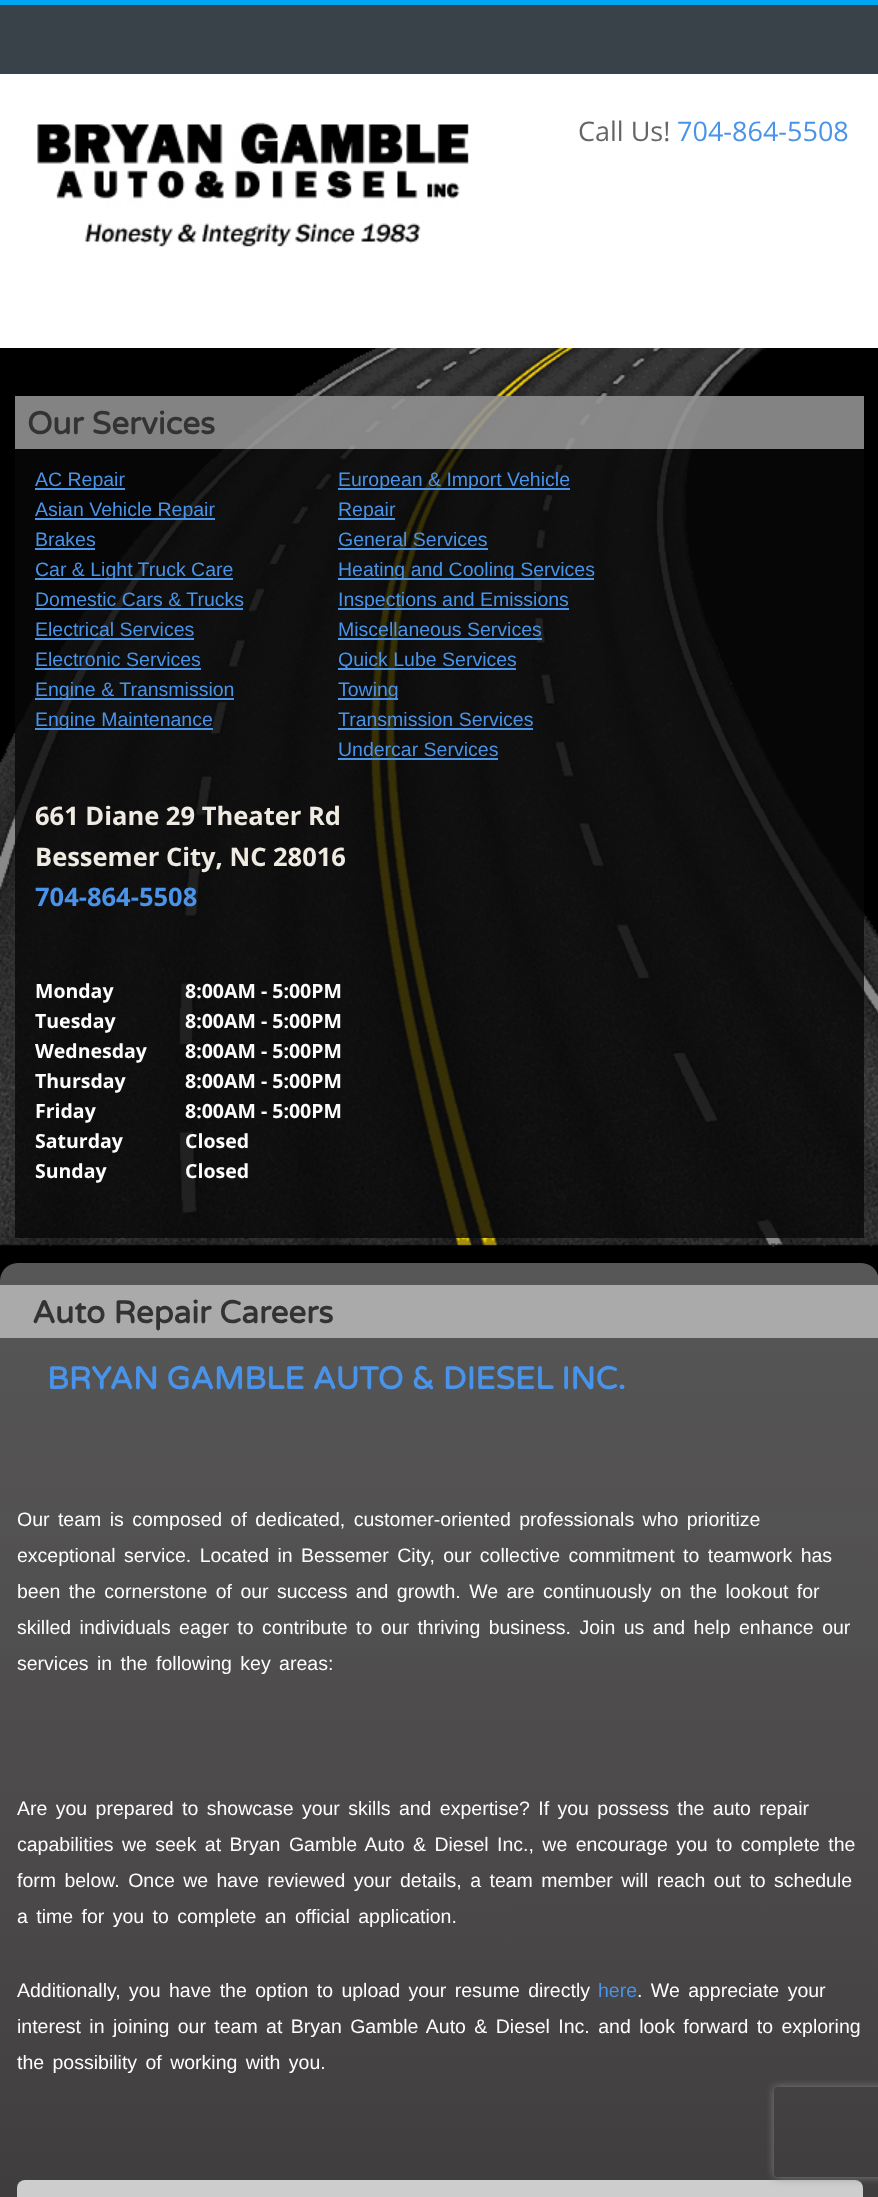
<svg xmlns="http://www.w3.org/2000/svg" width="878" height="2197" viewBox="0 0 878 2197">
  <defs>
    <linearGradient id="g1" gradientUnits="userSpaceOnUse" x1="439" y1="1263" x2="440" y2="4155"><stop offset="0" stop-color="#575757"/><stop offset="0.08" stop-color="#535152"/><stop offset="0.09" stop-color="#535353"/><stop offset="0.1" stop-color="#525051"/><stop offset="0.13" stop-color="#505050"/><stop offset="0.14" stop-color="#4f4d4e"/><stop offset="0.23" stop-color="#494748"/><stop offset="0.38" stop-color="#393738"/><stop offset="0.39" stop-color="#3a3839"/><stop offset="0.4" stop-color="#373536"/><stop offset="0.73" stop-color="#141213"/><stop offset="0.87" stop-color="#080607"/><stop offset="1" stop-color="#000"/></linearGradient>
    <clipPath id="clip1"><path d="M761 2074H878V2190H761ZM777 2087H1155C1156.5 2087 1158 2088.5 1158 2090V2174C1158 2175.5 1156.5 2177 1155 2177H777C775.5 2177 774 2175.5 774 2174V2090C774 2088.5 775.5 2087 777 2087Z" clip-rule="evenodd"/></clipPath>
  </defs>
  <rect width="100%" height="100%" fill="#000"/>
  <image x="0" y="348" width="878" height="899" href="img/1.png"/>
  <path d="M0 5h878v69H0z" fill="#394248"/>
  <path d="M0 0h878v5H0z" fill="#00a6f2"/>
  <path d="M0 74h878v274H0z" fill="#fff"/>
  <image x="37" y="122" width="432" height="125" href="img/2.png"/>
  <path d="M15 396h849v842H15z" fill="#080808cc"/>
  <path d="M15 396h849v53H15z" fill="#ffffff80"/>
  <path d="M35 488h90v2H35z" fill="#4994e9"/>
  <path d="M35 518h180v2H35z" fill="#4994e9"/>
  <path d="M35 548h60v2H35z" fill="#4994e9"/>
  <path d="M35 578h198v2H35z" fill="#4994e9"/>
  <path d="M35 608h208v2H35z" fill="#4994e9"/>
  <path d="M35 638h159v2H35z" fill="#4994e9"/>
  <path d="M35 668h166v2H35z" fill="#4994e9"/>
  <path d="M35 698h199v2H35z" fill="#4994e9"/>
  <path d="M35 728h178v2H35z" fill="#4994e9"/>
  <path d="M338 488h232v2H338z" fill="#4994e9"/>
  <path d="M338 518h57v2H338z" fill="#4994e9"/>
  <path d="M338 548h150v2H338z" fill="#4994e9"/>
  <path d="M338 578h256v2H338z" fill="#4994e9"/>
  <path d="M338 608h231v2H338z" fill="#4994e9"/>
  <path d="M338 638h204v2H338z" fill="#4994e9"/>
  <path d="M338 668h178v2H338z" fill="#4994e9"/>
  <path d="M338 698h60v2H338z" fill="#4994e9"/>
  <path d="M338 728h195v2H338z" fill="#4994e9"/>
  <path d="M338 758h160v2H338z" fill="#4994e9"/>
  <path d="M18 1263H861C871 1263 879 1271 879 1281V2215H0V1281C0 1271 8 1263 18 1263Z" fill="url(#g1)"/>
  <path d="M0 1285h878v53H0z" fill="#abaaaa"/>
  <rect x="17" y="2180" width="846" height="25" rx="8" fill="#cdcdcd"/>
  <g clip-path="url(#clip1)">
    <rect x="774" y="2087" width="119" height="90" rx="3" fill="#808080" filter="blur(4px)"/>
  </g>
  <text x="578" y="141" font-family="Open Sans" font-size="27" fill="#636566">Call Us!</text>
  <text x="677" y="141" font-family="Open Sans" font-size="27" fill="#4994e9">704-864-5508</text>
  <text x="27" y="434" font-family="Varela Round" font-size="31.5" font-weight="bold" fill="#333">Our Services</text>
  <g font-family="Liberation Sans" font-size="19.5" fill="#4994e9">
    <text x="35" y="486">AC Repair</text>
    <text x="35" y="516">Asian Vehicle Repair</text>
    <text x="35" y="546">Brakes</text>
    <text x="35" y="576">Car &amp; Light Truck Care</text>
    <text x="35" y="606">Domestic Cars &amp; Trucks</text>
    <text x="35" y="636">Electrical Services</text>
    <text x="35" y="666">Electronic Services</text>
    <text x="35" y="696">Engine &amp; Transmission</text>
    <text x="35" y="726">Engine Maintenance</text>
    <text x="338" y="486">European &amp; Import Vehicle</text>
    <text x="338" y="516">Repair</text>
    <text x="338" y="546">General Services</text>
    <text x="338" y="576">Heating and Cooling Services</text>
    <text x="338" y="606">Inspections and Emissions</text>
    <text x="338" y="636">Miscellaneous Services</text>
    <text x="338" y="666">Quick Lube Services</text>
    <text x="338" y="696">Towing</text>
    <text x="338" y="726">Transmission Services</text>
    <text x="338" y="756">Undercar Services</text>
  </g>
  <g font-family="Open Sans" font-size="25.5" font-weight="bold" fill="#efebe2">
    <text x="35" y="825">661 Diane 29 Theater Rd</text>
    <text x="35" y="866">Bessemer City, NC 28016</text>
  </g>
  <text x="35" y="906" font-family="Open Sans" font-size="25.5" font-weight="bold" fill="#4994e9">704-864-5508</text>
  <g font-family="Open Sans" font-size="19.5" font-weight="bold" fill="#fff">
    <text x="35" y="998">Monday</text>
    <text x="35" y="1028">Tuesday</text>
    <text x="35" y="1058">Wednesday</text>
    <text x="35" y="1088">Thursday</text>
    <text x="35" y="1118">Friday</text>
    <text x="35" y="1148">Saturday</text>
    <text x="35" y="1178">Sunday</text>
    <text x="185" y="998">8:00AM - 5:00PM</text>
    <text x="185" y="1028">8:00AM - 5:00PM</text>
    <text x="185" y="1058">8:00AM - 5:00PM</text>
    <text x="185" y="1088">8:00AM - 5:00PM</text>
    <text x="185" y="1118">8:00AM - 5:00PM</text>
    <text x="185" y="1148">Closed</text>
    <text x="185" y="1178">Closed</text>
  </g>
  <text x="32" y="1323" font-family="Varela Round" font-size="31.5" font-weight="bold" fill="#333">Auto Repair Careers</text>
  <text x="47" y="1389" font-family="Varela Round" font-size="31.5" font-weight="bold" fill="#4994e9">BRYAN GAMBLE AUTO &amp; DIESEL INC.</text>
  <g font-family="Liberation Sans" font-size="19.5" fill="#fff">
    <text x="17" y="1526" word-spacing="3">Our team is composed of dedicated, customer-oriented professionals who prioritize</text>
    <text x="17" y="1562" word-spacing="3">exceptional service. Located in Bessemer City, our collective commitment to teamwork has</text>
    <text x="17" y="1598" word-spacing="3">been the cornerstone of our success and growth. We are continuously on the lookout for</text>
    <text x="17" y="1634" word-spacing="3">skilled individuals eager to contribute to our thriving business. Join us and help enhance our</text>
    <text x="17" y="1670" word-spacing="3">services in the following key areas:</text>
    <text x="17" y="1815" word-spacing="3">Are you prepared to showcase your skills and expertise? If you possess the auto repair</text>
    <text x="17" y="1851" word-spacing="3">capabilities we seek at Bryan Gamble Auto &amp; Diesel Inc., we encourage you to complete the</text>
    <text x="17" y="1887" word-spacing="3">form below. Once we have reviewed your details, a team member will reach out to schedule</text>
    <text x="17" y="1923" word-spacing="3">a time for you to complete an official application.</text>
    <text x="17" y="1997" word-spacing="3">Additionally, you have the option to upload your resume directly</text>
  </g>
  <text x="598" y="1997" font-family="Liberation Sans" font-size="19.5" fill="#4994e9">here</text>
  <g font-family="Liberation Sans" font-size="19.5" fill="#fff">
    <text x="637" y="1997" word-spacing="3">. We appreciate your</text>
    <text x="17" y="2033" word-spacing="3">interest in joining our team at Bryan Gamble Auto &amp; Diesel Inc. and look forward to exploring</text>
    <text x="17" y="2069" word-spacing="3">the possibility of working with you.</text>
  </g>
</svg>
